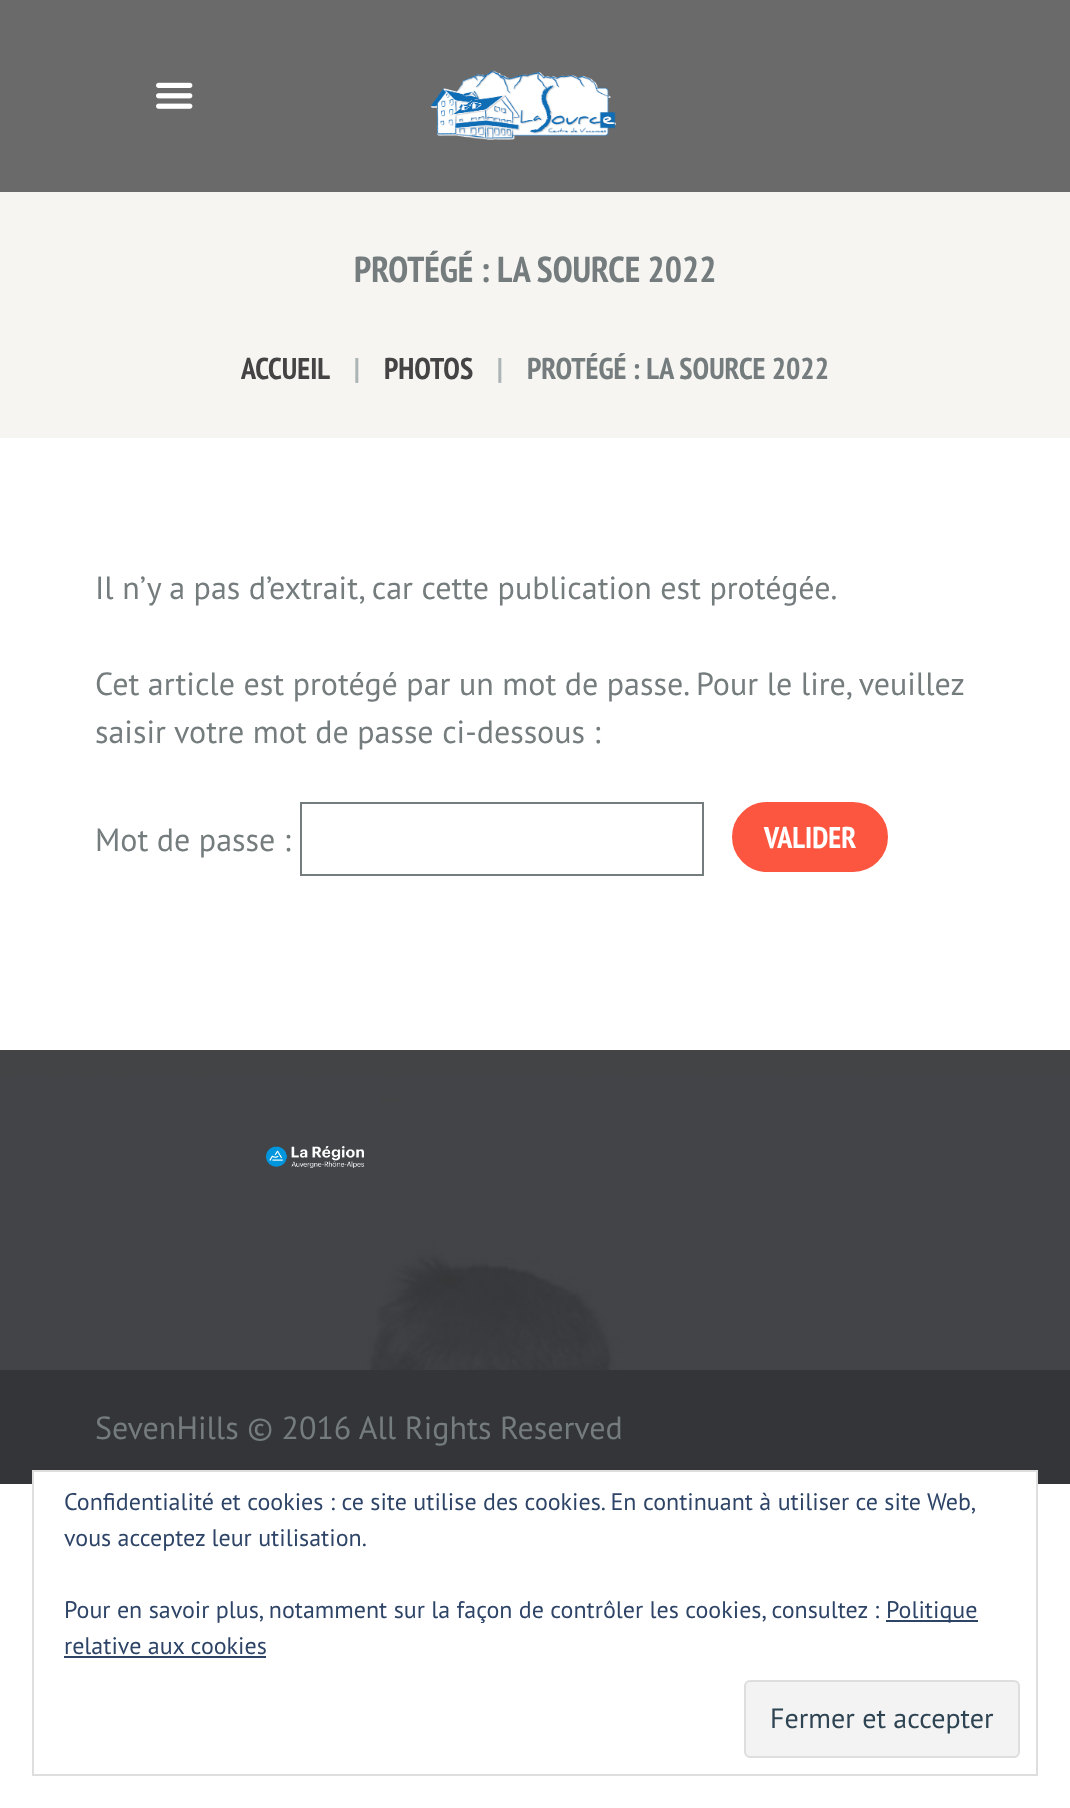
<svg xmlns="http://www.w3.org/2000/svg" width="1070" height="1808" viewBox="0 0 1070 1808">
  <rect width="100%" height="100%" fill="#fff"/>
  <path d="M0 0h1070v192H0z" fill="#6a6a6a"/>
  <image x="156" y="82" width="37" height="27" href="img/1.png"/>
  <image x="430" y="70" width="186" height="70" href="img/2.png"/>
  <path d="M0 192h1070v246H0z" fill="#f6f5f2"/>
  <path d="M301 803h402v72H301z" fill="none" stroke="#757c7e" stroke-width="2"/>
  <rect x="733" y="803" width="154" height="68" rx="34" fill="#fc5640" stroke="#fc5640" stroke-width="2"/>
  <image x="0" y="1050" width="1070" height="320" href="img/3.png"/>
  <image x="266" y="1146" width="98" height="22" href="img/4.png"/>
  <path d="M0 1370h1070v114H0z" fill="#343539"/>
  <path d="M34 1472h1002v12H34z" fill="#fff"/>
  <path d="M33 1471h1004v304H33z" fill="none" stroke="#dedede" stroke-width="2"/>
  <path d="M886 1620h92v2H886z" fill="#2e4467"/>
  <path d="M64 1656h202v2H64z" fill="#2e4467"/>
  <rect x="745" y="1681" width="274" height="76" rx="5" fill="#f3f3f3" stroke="#dedede" stroke-width="2"/>
  <text x="354" y="282" font-family="PT Sans Narrow" font-size="36" font-weight="bold" fill="#757c7e">PROTÉGÉ : LA SOURCE 2022</text>
  <text x="241" y="379" font-family="PT Sans Narrow" font-size="30" font-weight="bold" fill="#444">ACCUEIL</text>
  <text x="354" y="379" font-family="PT Sans Narrow" font-size="30" font-weight="bold" fill="#acb4b6">|</text>
  <text x="384" y="379" font-family="PT Sans Narrow" font-size="30" font-weight="bold" fill="#444">PHOTOS</text>
  <text x="497" y="379" font-family="PT Sans Narrow" font-size="30" font-weight="bold" fill="#acb4b6">|</text>
  <text x="527" y="379" font-family="PT Sans Narrow" font-size="30" font-weight="bold" fill="#757c7e">PROTÉGÉ : LA SOURCE 2022</text>
  <g font-family="PT Sans" font-size="32" fill="#757c7e">
    <text x="95" y="599">Il n’y a pas d’extrait, car cette publication est protégée.</text>
    <text x="95" y="695">Cet article est protégé par un mot de passe. Pour le lire, veuillez</text>
    <text x="95" y="743">saisir votre mot de passe ci-dessous :</text>
    <text x="95" y="851">Mot de passe :</text>
  </g>
  <text x="764" y="848" font-family="PT Sans Narrow" font-size="30" font-weight="bold" fill="#fff">VALIDER</text>
  <text x="95" y="1439" font-family="PT Sans" font-size="32" fill="#757c7e">SevenHills © 2016 All Rights Reserved</text>
  <g font-family="PT Sans" font-size="24" fill="#2e4467">
    <text x="64" y="1510">Confidentialité et cookies : ce site utilise des cookies. En continuant à utiliser ce site Web,</text>
    <text x="64" y="1546">vous acceptez leur utilisation.</text>
    <text x="64" y="1618">Pour en savoir plus, notamment sur la façon de contrôler les cookies, consultez :</text>
    <text x="886" y="1618">Politique</text>
    <text x="64" y="1654">relative aux cookies</text>
  </g>
  <text x="770" y="1728" font-family="PT Sans" font-size="28" fill="#2e4453">Fermer et accepter</text>
</svg>
